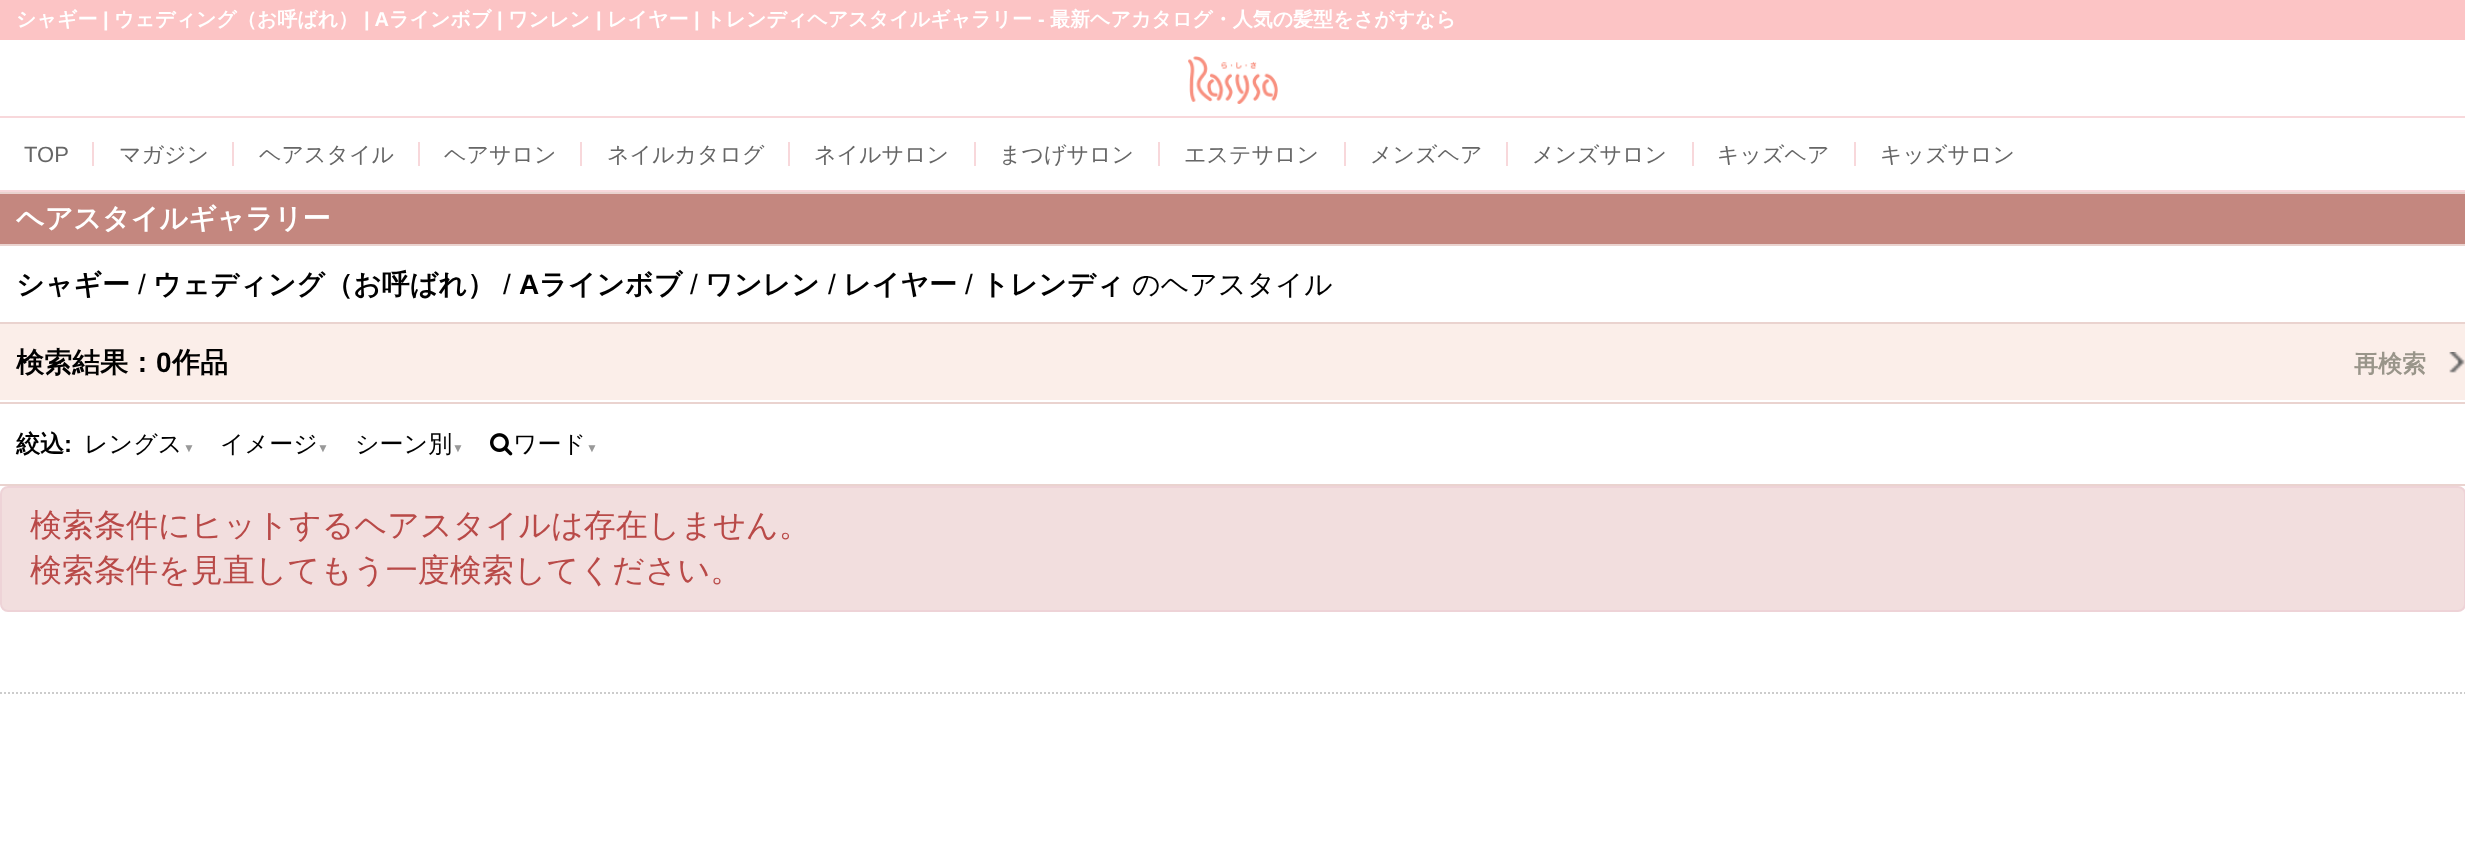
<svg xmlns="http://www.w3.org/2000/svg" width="2465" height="867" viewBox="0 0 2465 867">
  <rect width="100%" height="100%" fill="#fff"/>
  <path d="M0 0h2465v40H0z" fill="#fcc4c5"/>
  <path d="M0 116h2465v2H0z" fill="#f8d8db"/>
  <image x="1188" y="56" width="90" height="48" href="img/1.png"/>
  <path d="M0 190h2465v2H0z" fill="#f8d8db"/>
  <path d="M92 142h2v24H92z" fill="#f8d8db"/>
  <path d="M232 142h2v24H232z" fill="#f8d8db"/>
  <path d="M418 142h2v24H418z" fill="#f8d8db"/>
  <path d="M580 142h2v24H580z" fill="#f8d8db"/>
  <path d="M788 142h2v24H788z" fill="#f8d8db"/>
  <path d="M974 142h2v24H974z" fill="#f8d8db"/>
  <path d="M1158 142h2v24H1158z" fill="#f8d8db"/>
  <path d="M1344 142h2v24H1344z" fill="#f8d8db"/>
  <path d="M1506 142h2v24H1506z" fill="#f8d8db"/>
  <path d="M1692 142h2v24H1692z" fill="#f8d8db"/>
  <path d="M1854 142h2v24H1854z" fill="#f8d8db"/>
  <path d="M0 194h2465v50H0z" fill="#c4877f"/>
  <path d="M0 192h2465v2H0z" fill="#ead3cf"/>
  <path d="M0 244h2465v2H0z" fill="#ead3cf"/>
  <path d="M0 324h2465v76H0z" fill="#fbeee9"/>
  <path d="M0 322h2465v2H0z" fill="#ead3cf"/>
  <path d="M0 402h2465v2H0z" fill="#ead3cf"/>
  <image x="2449" y="352" width="16" height="21" href="img/2.png"/>
  <path d="M0 484h2465v2H0z" fill="#ead3cf"/>
  <image x="490" y="433" width="23" height="23" href="img/3.png"/>
  <rect x="1" y="487" width="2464" height="124" rx="7" fill="#f2dede" stroke="#eed3d7" stroke-width="2"/>
  <path d="M0 693H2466" fill="none" stroke="#ccc" stroke-width="2" stroke-dasharray="2 2"/>
  <text x="16" y="26" font-family="WenQuanYi Zen Hei" font-size="20" font-weight="bold" fill="#fff">シャギー</text>
  <text x="103" y="26" font-family="Liberation Sans" font-size="20" font-weight="bold" fill="#fff">|</text>
  <text x="114" y="26" font-family="WenQuanYi Zen Hei" font-size="20" font-weight="bold" fill="#fff">ウェディング（お呼ばれ）</text>
  <text x="364" y="26" font-family="Liberation Sans" font-size="20" font-weight="bold" fill="#fff">| A</text>
  <text x="389" y="26" font-family="WenQuanYi Zen Hei" font-size="20" font-weight="bold" fill="#fff">ラインボブ</text>
  <text x="497" y="26" font-family="Liberation Sans" font-size="20" font-weight="bold" fill="#fff">|</text>
  <text x="508" y="26" font-family="WenQuanYi Zen Hei" font-size="20" font-weight="bold" fill="#fff">ワンレン</text>
  <text x="596" y="26" font-family="Liberation Sans" font-size="20" font-weight="bold" fill="#fff">|</text>
  <text x="607" y="26" font-family="WenQuanYi Zen Hei" font-size="20" font-weight="bold" fill="#fff">レイヤー</text>
  <text x="694" y="26" font-family="Liberation Sans" font-size="20" font-weight="bold" fill="#fff">|</text>
  <text x="705" y="26" font-family="WenQuanYi Zen Hei" font-size="20" font-weight="bold" fill="#fff">トレンディヘアスタイルギャラリー</text>
  <text x="1038" y="26" font-family="Liberation Sans" font-size="20" font-weight="bold" fill="#fff">-</text>
  <text x="1050" y="26" font-family="WenQuanYi Zen Hei" font-size="20" font-weight="bold" fill="#fff">最新ヘアカタログ・人気の髪型をさがすなら</text>
  <text x="24" y="162" font-family="Liberation Sans" font-size="22" fill="#666">TOP</text>
  <g font-family="WenQuanYi Zen Hei" font-size="22" font-weight="500" fill="#666">
    <text x="119" y="162">マガジン</text>
    <text x="259" y="162">ヘアスタイル</text>
    <text x="444" y="162">ヘアサロン</text>
    <text x="607" y="162">ネイルカタログ</text>
    <text x="814" y="162">ネイルサロン</text>
    <text x="999" y="162">まつげサロン</text>
    <text x="1184" y="162">エステサロン</text>
    <text x="1370" y="162">メンズヘア</text>
    <text x="1532" y="162">メンズサロン</text>
    <text x="1717" y="162">キッズヘア</text>
    <text x="1880" y="162">キッズサロン</text>
  </g>
  <text x="16" y="228" font-family="WenQuanYi Zen Hei" font-size="28" font-weight="bold" fill="#fff">ヘアスタイルギャラリー</text>
  <text x="16" y="294" font-family="WenQuanYi Zen Hei" font-size="28" font-weight="bold" fill="#000">シャギー</text>
  <text x="138" y="294" font-family="Liberation Sans" font-size="28" fill="#000">/</text>
  <text x="153" y="294" font-family="WenQuanYi Zen Hei" font-size="28" font-weight="bold" fill="#000">ウェディング（お呼ばれ）</text>
  <text x="503" y="294" font-family="Liberation Sans" font-size="28" fill="#000">/</text>
  <text x="519" y="294" font-family="Liberation Sans" font-size="28" font-weight="bold" fill="#000">A</text>
  <text x="539" y="294" font-family="WenQuanYi Zen Hei" font-size="28" font-weight="bold" fill="#000">ラインボブ</text>
  <text x="690" y="294" font-family="Liberation Sans" font-size="28" fill="#000">/</text>
  <text x="705" y="294" font-family="WenQuanYi Zen Hei" font-size="28" font-weight="bold" fill="#000">ワンレン</text>
  <text x="828" y="294" font-family="Liberation Sans" font-size="28" fill="#000">/</text>
  <text x="843" y="294" font-family="WenQuanYi Zen Hei" font-size="28" font-weight="bold" fill="#000">レイヤー</text>
  <text x="965" y="294" font-family="Liberation Sans" font-size="28" fill="#000">/</text>
  <text x="981" y="294" font-family="WenQuanYi Zen Hei" font-size="28" font-weight="bold" fill="#000">トレンディ</text>
  <text x="1132" y="294" font-family="WenQuanYi Zen Hei" font-size="28" font-weight="500" fill="#000">のヘアスタイル</text>
  <text x="16" y="372" font-family="WenQuanYi Zen Hei" font-size="28" font-weight="bold" fill="#000">検索結果：</text>
  <text x="156" y="372" font-family="Liberation Sans" font-size="28" font-weight="bold" fill="#000">0</text>
  <text x="172" y="372" font-family="WenQuanYi Zen Hei" font-size="28" font-weight="bold" fill="#000">作品</text>
  <text x="2354" y="372" font-family="WenQuanYi Zen Hei" font-size="24" font-weight="bold" fill="#99958a">再検索</text>
  <text x="16" y="452" font-family="WenQuanYi Zen Hei" font-size="24" font-weight="bold" fill="#000">絞込</text>
  <text x="64" y="452" font-family="Liberation Sans" font-size="24" font-weight="bold" fill="#000">:</text>
  <text x="84" y="452" font-family="WenQuanYi Zen Hei" font-size="24" font-weight="500" fill="#000">レングス</text>
  <text x="183" y="452" font-family="Liberation Sans" font-size="12" fill="#999">▼</text>
  <text x="220" y="452" font-family="WenQuanYi Zen Hei" font-size="24" font-weight="500" fill="#000">イメージ</text>
  <text x="317" y="452" font-family="Liberation Sans" font-size="12" fill="#999">▼</text>
  <text x="355" y="452" font-family="WenQuanYi Zen Hei" font-size="24" font-weight="500" fill="#000">シーン別</text>
  <text x="452" y="452" font-family="Liberation Sans" font-size="12" fill="#999">▼</text>
  <text x="513" y="452" font-family="WenQuanYi Zen Hei" font-size="24" font-weight="500" fill="#000">ワード</text>
  <text x="586" y="452" font-family="Liberation Sans" font-size="12" fill="#999">▼</text>
  <g font-family="WenQuanYi Zen Hei" font-size="32" font-weight="500" fill="#b94a48">
    <text x="30" y="536">検索条件にヒットするヘアスタイルは存在しません。</text>
    <text x="30" y="581">検索条件を見直してもう一度検索してください。</text>
  </g>
</svg>
